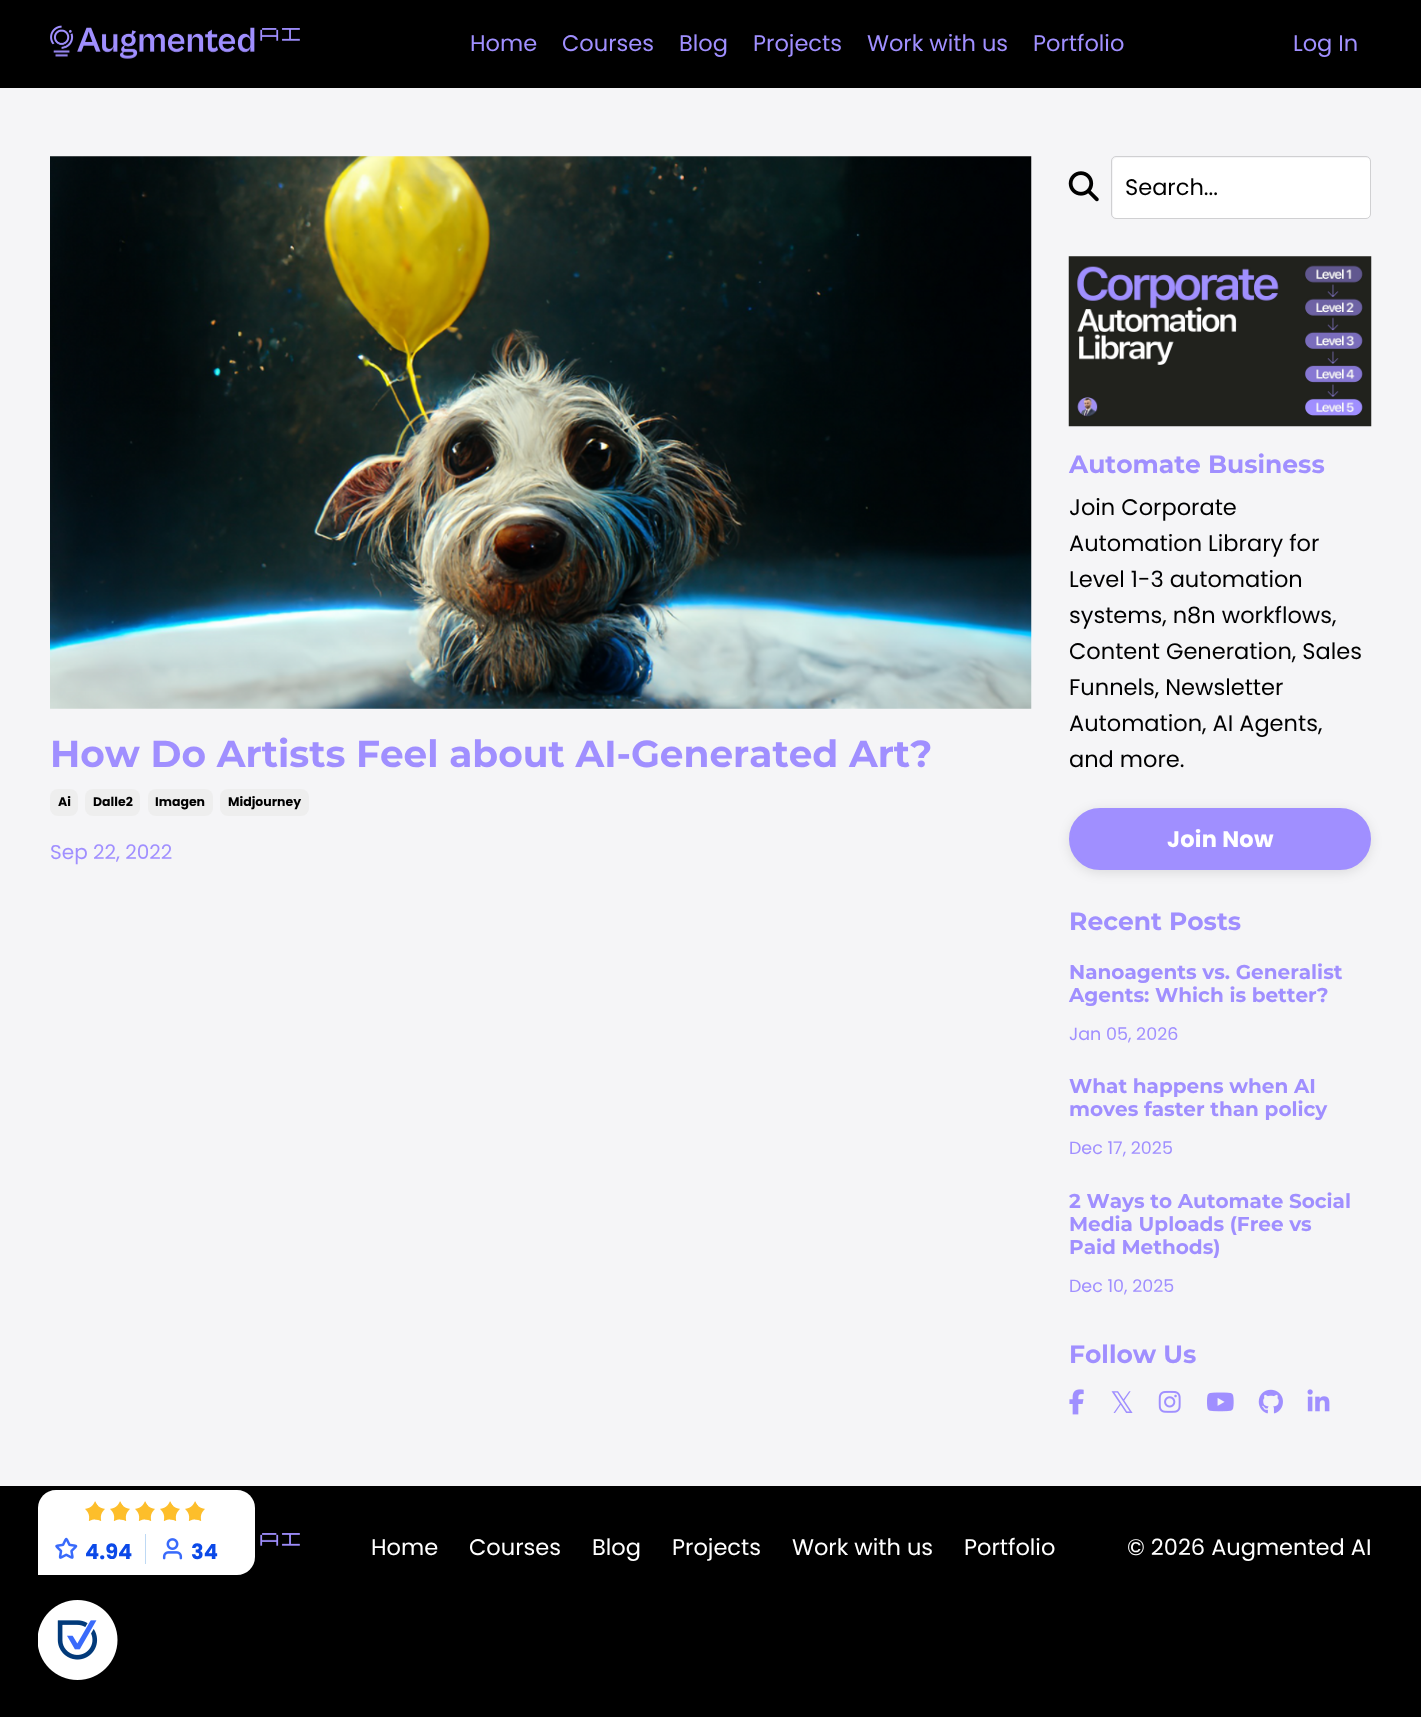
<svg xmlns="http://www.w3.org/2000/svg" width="1421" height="1717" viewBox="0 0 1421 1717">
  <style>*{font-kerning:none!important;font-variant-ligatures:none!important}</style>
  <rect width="100%" height="100%" fill="#f5f5f7"/>
  <path d="M0 0h1421v88H0z" fill="#000"/>
  <image x="50" y="25" width="250" height="34" href="img/1.png"/>
  <image x="50" y="156" width="982" height="553" href="img/2.png"/>
  <rect x="50" y="789" width="28" height="27" rx="8" fill="#eee"/>
  <rect x="85" y="789" width="55" height="27" rx="8" fill="#eee"/>
  <rect x="148" y="789" width="65" height="27" rx="8" fill="#eee"/>
  <rect x="220" y="789" width="89" height="27" rx="8" fill="#eee"/>
  <image x="1068" y="171" width="31" height="31" href="img/3.png"/>
  <rect x="1113" y="158" width="257" height="60" rx="4" fill="#fff"/>
  <rect x="1111.5" y="156.5" width="259" height="62" rx="4.5" fill="none" stroke="#d0d0d2"/>
  <image x="1068" y="256" width="304" height="171" href="img/4.png"/>
  <rect x="1069" y="810" width="302" height="63" rx="31.5" fill="#0000001a" filter="blur(6px)"/>
  <rect x="1070.5" y="809.5" width="299" height="59" rx="29.5" fill="#a08fff" stroke="#a08fff" stroke-width="3"/>
  <image x="1069" y="1389" width="15" height="26" href="img/5.png"/>
  <image x="1158" y="1390" width="23" height="23" href="img/6.png"/>
  <image x="1207" y="1392" width="27" height="20" href="img/7.png"/>
  <image x="1258" y="1389" width="25" height="25" href="img/8.png"/>
  <image x="1307" y="1389" width="23" height="23" href="img/9.png"/>
  <path d="M0 1486h1421v231H0z" fill="#000"/>
  <path d="M56 1490H237C247 1490 255 1498 255 1508V1557C255 1567 247 1575 237 1575H38V1508C38 1498 46 1490 56 1490Z" fill="#fff"/>
  <image x="85" y="1501" width="13" height="20" href="img/10.png"/>
  <image x="95" y="1501" width="10" height="20" href="img/11.png"/>
  <image x="110" y="1501" width="13" height="20" href="img/10.png"/>
  <image x="120" y="1501" width="10" height="20" href="img/11.png"/>
  <image x="135" y="1501" width="13" height="20" href="img/10.png"/>
  <image x="145" y="1501" width="10" height="20" href="img/11.png"/>
  <image x="160" y="1501" width="13" height="20" href="img/10.png"/>
  <image x="170" y="1501" width="10" height="20" href="img/11.png"/>
  <image x="185" y="1501" width="13" height="20" href="img/10.png"/>
  <image x="195" y="1501" width="10" height="20" href="img/11.png"/>
  <image x="55" y="1537" width="23" height="22" href="img/12.png"/>
  <path d="M145 1534h1v30H145z" fill="#bed9f4"/>
  <image x="162" y="1538" width="21" height="22" href="img/13.png"/>
  <image x="38" y="1600" width="80" height="80" href="img/14.png"/>
  <image x="260" y="1533" width="40" height="13" href="img/15.png"/>
  <g font-family="Poppins" font-size="22.5" fill="#a08fff">
    <text x="470" y="51">Home</text>
    <text x="562" y="51">Courses</text>
    <text x="679" y="51">Blog</text>
    <text x="753" y="51">Projects</text>
    <text x="867" y="51">Work with us</text>
    <text x="1033" y="51">Portfolio</text>
    <text x="1293" y="51">Log In</text>
  </g>
  <text x="50" y="767" font-family="Montserrat" font-size="37.5" font-weight="bold" fill="#a08fff">How Do Artists Feel about AI-Generated Art?</text>
  <g font-family="Poppins" font-size="12.5" font-weight="bold" fill="#000">
    <text x="58" y="806">Ai</text>
    <text x="93" y="806">Dalle2</text>
    <text x="155" y="806">Imagen</text>
    <text x="228" y="806">Midjourney</text>
  </g>
  <text x="50" y="859" font-family="Poppins" font-size="20" fill="#a08fff">Sep 22, 2022</text>
  <text x="1125" y="195" font-family="Poppins" font-size="22.5" fill="#000">Search...</text>
  <text x="1069" y="473" font-family="Montserrat" font-size="25" font-weight="bold" fill="#a08fff">Automate Business</text>
  <g font-family="Poppins" font-size="22.5" fill="#000">
    <text x="1069" y="515">Join Corporate</text>
    <text x="1069" y="551">Automation Library for</text>
    <text x="1069" y="587">Level 1-3 automation</text>
    <text x="1069" y="623">systems, n8n workflows,</text>
    <text x="1069" y="659">Content Generation, Sales</text>
    <text x="1069" y="695">Funnels, Newsletter</text>
    <text x="1069" y="731">Automation, AI Agents,</text>
    <text x="1069" y="767">and more.</text>
  </g>
  <text x="1167" y="847" font-family="Poppins" font-size="22.5" font-weight="bold" letter-spacing="0.25" fill="#fff">Join Now</text>
  <text x="1069" y="930" font-family="Montserrat" font-size="25" font-weight="bold" fill="#a08fff">Recent Posts</text>
  <g font-family="Montserrat" font-size="20" font-weight="bold" fill="#a08fff">
    <text x="1069" y="979">Nanoagents vs. Generalist</text>
    <text x="1069" y="1002">Agents: Which is better?</text>
  </g>
  <text x="1069" y="1040" font-family="Poppins" font-size="17.5" fill="#a08fff">Jan 05, 2026</text>
  <g font-family="Montserrat" font-size="20" font-weight="bold" fill="#a08fff">
    <text x="1069" y="1093">What happens when AI</text>
    <text x="1069" y="1116">moves faster than policy</text>
  </g>
  <text x="1069" y="1154" font-family="Poppins" font-size="17.5" fill="#a08fff">Dec 17, 2025</text>
  <g font-family="Montserrat" font-size="20" font-weight="bold" fill="#a08fff">
    <text x="1069" y="1208">2 Ways to Automate Social</text>
    <text x="1069" y="1231">Media Uploads (Free vs</text>
    <text x="1069" y="1254">Paid Methods)</text>
  </g>
  <text x="1069" y="1292" font-family="Poppins" font-size="17.5" fill="#a08fff">Dec 10, 2025</text>
  <text x="1069" y="1363" font-family="Montserrat" font-size="25" font-weight="bold" fill="#a08fff">Follow Us</text>
  <text x="1110" y="1413" font-family="DejaVu Sans" font-size="30" fill="#a08fff">𝕏</text>
  <g font-family="Poppins" font-size="21" font-weight="bold" fill="#0b49e8">
    <text x="85" y="1559">4.94</text>
    <text x="191" y="1559">34</text>
  </g>
  <g font-family="Poppins" font-size="22.5" fill="#fff">
    <text x="371" y="1555">Home</text>
    <text x="469" y="1555">Courses</text>
    <text x="592" y="1555">Blog</text>
    <text x="672" y="1555">Projects</text>
    <text x="792" y="1555">Work with us</text>
    <text x="964" y="1555">Portfolio</text>
    <text x="1127" y="1555">© 2026 Augmented AI</text>
  </g>
</svg>
